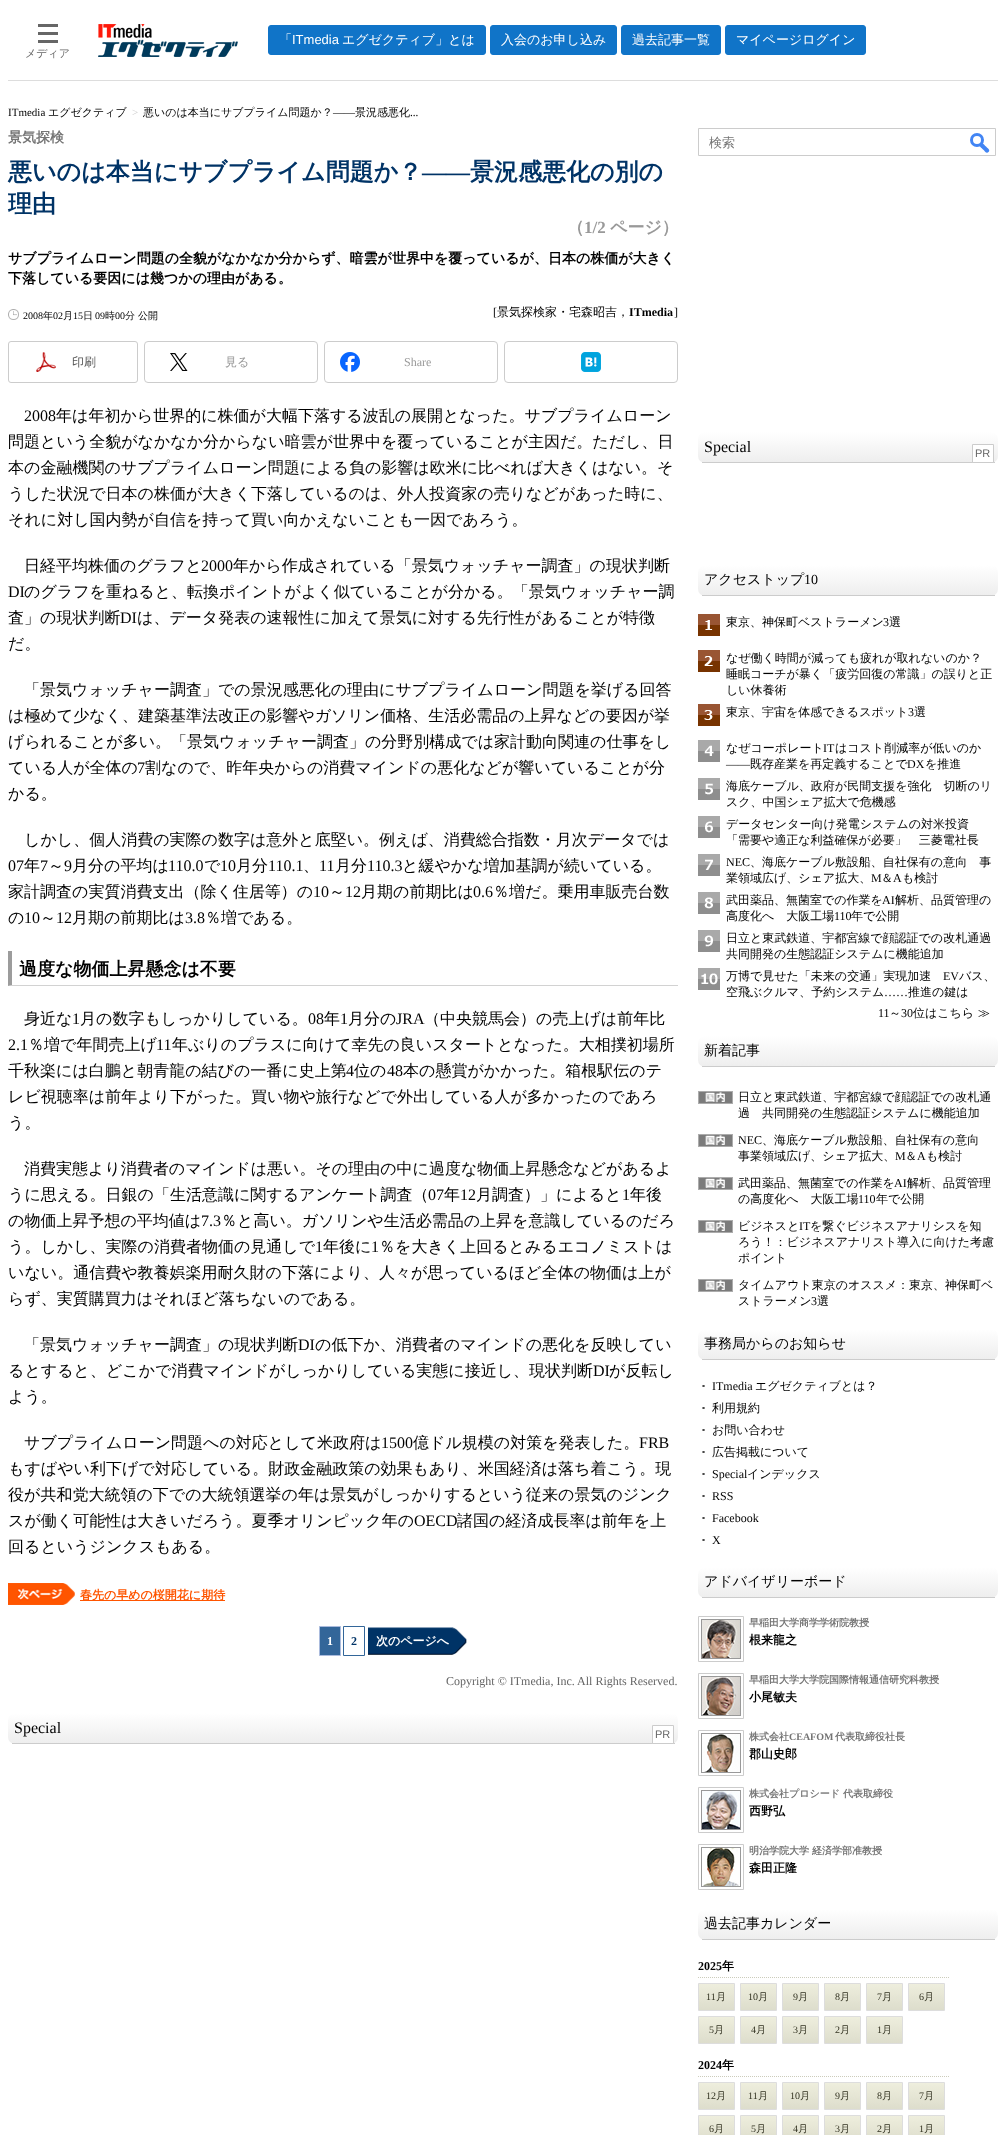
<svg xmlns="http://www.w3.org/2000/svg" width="1005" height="2135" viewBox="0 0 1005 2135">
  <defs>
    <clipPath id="clip1"><rect x="8" y="1713" width="670" height="31" rx="7"/></clipPath>
    <linearGradient id="g1" gradientUnits="userSpaceOnUse" x1="8" y1="1713" x2="8" y2="1743"><stop offset="0" stop-color="#fff"/><stop offset="1" stop-color="#eee"/></linearGradient>
    <clipPath id="clip2"><rect x="698" y="432" width="300" height="31" rx="7"/></clipPath>
    <linearGradient id="g2" gradientUnits="userSpaceOnUse" x1="698" y1="432" x2="698" y2="462"><stop offset="0" stop-color="#fff"/><stop offset="1" stop-color="#eee"/></linearGradient>
    <clipPath id="clip3"><rect x="698" y="565" width="300" height="31" rx="7"/></clipPath>
    <linearGradient id="g3" gradientUnits="userSpaceOnUse" x1="698" y1="565" x2="698" y2="595"><stop offset="0" stop-color="#fff"/><stop offset="1" stop-color="#eee"/></linearGradient>
    <clipPath id="clip4"><rect x="698" y="1036" width="300" height="31" rx="7"/></clipPath>
    <linearGradient id="g4" gradientUnits="userSpaceOnUse" x1="698" y1="1036" x2="698" y2="1066"><stop offset="0" stop-color="#fff"/><stop offset="1" stop-color="#eee"/></linearGradient>
    <clipPath id="clip5"><rect x="698" y="1329" width="300" height="31" rx="7"/></clipPath>
    <linearGradient id="g5" gradientUnits="userSpaceOnUse" x1="698" y1="1329" x2="698" y2="1359"><stop offset="0" stop-color="#fff"/><stop offset="1" stop-color="#eee"/></linearGradient>
    <clipPath id="clip6"><rect x="698" y="1567" width="300" height="31" rx="7"/></clipPath>
    <linearGradient id="g6" gradientUnits="userSpaceOnUse" x1="698" y1="1567" x2="698" y2="1597"><stop offset="0" stop-color="#fff"/><stop offset="1" stop-color="#eee"/></linearGradient>
    <clipPath id="clip7"><rect x="698" y="1909" width="300" height="31" rx="7"/></clipPath>
    <linearGradient id="g7" gradientUnits="userSpaceOnUse" x1="698" y1="1909" x2="698" y2="1939"><stop offset="0" stop-color="#fff"/><stop offset="1" stop-color="#eee"/></linearGradient>
    <linearGradient id="g8" gradientUnits="userSpaceOnUse" x1="699" y1="1984" x2="699" y2="2010"><stop offset="0" stop-color="#eed"/><stop offset="1" stop-color="#ddc"/></linearGradient>
    <linearGradient id="g9" gradientUnits="userSpaceOnUse" x1="741" y1="1984" x2="741" y2="2010"><stop offset="0" stop-color="#eed"/><stop offset="1" stop-color="#ddc"/></linearGradient>
    <linearGradient id="g10" gradientUnits="userSpaceOnUse" x1="783" y1="1984" x2="783" y2="2010"><stop offset="0" stop-color="#eed"/><stop offset="1" stop-color="#ddc"/></linearGradient>
    <linearGradient id="g11" gradientUnits="userSpaceOnUse" x1="825" y1="1984" x2="825" y2="2010"><stop offset="0" stop-color="#eed"/><stop offset="1" stop-color="#ddc"/></linearGradient>
    <linearGradient id="g12" gradientUnits="userSpaceOnUse" x1="867" y1="1984" x2="867" y2="2010"><stop offset="0" stop-color="#eed"/><stop offset="1" stop-color="#ddc"/></linearGradient>
    <linearGradient id="g13" gradientUnits="userSpaceOnUse" x1="909" y1="1984" x2="909" y2="2010"><stop offset="0" stop-color="#eed"/><stop offset="1" stop-color="#ddc"/></linearGradient>
    <linearGradient id="g14" gradientUnits="userSpaceOnUse" x1="699" y1="2017" x2="699" y2="2043"><stop offset="0" stop-color="#eed"/><stop offset="1" stop-color="#ddc"/></linearGradient>
    <linearGradient id="g15" gradientUnits="userSpaceOnUse" x1="741" y1="2017" x2="741" y2="2043"><stop offset="0" stop-color="#eed"/><stop offset="1" stop-color="#ddc"/></linearGradient>
    <linearGradient id="g16" gradientUnits="userSpaceOnUse" x1="783" y1="2017" x2="783" y2="2043"><stop offset="0" stop-color="#eed"/><stop offset="1" stop-color="#ddc"/></linearGradient>
    <linearGradient id="g17" gradientUnits="userSpaceOnUse" x1="825" y1="2017" x2="825" y2="2043"><stop offset="0" stop-color="#eed"/><stop offset="1" stop-color="#ddc"/></linearGradient>
    <linearGradient id="g18" gradientUnits="userSpaceOnUse" x1="867" y1="2017" x2="867" y2="2043"><stop offset="0" stop-color="#eed"/><stop offset="1" stop-color="#ddc"/></linearGradient>
    <linearGradient id="g19" gradientUnits="userSpaceOnUse" x1="699" y1="2083" x2="699" y2="2109"><stop offset="0" stop-color="#eed"/><stop offset="1" stop-color="#ddc"/></linearGradient>
    <linearGradient id="g20" gradientUnits="userSpaceOnUse" x1="741" y1="2083" x2="741" y2="2109"><stop offset="0" stop-color="#eed"/><stop offset="1" stop-color="#ddc"/></linearGradient>
    <linearGradient id="g21" gradientUnits="userSpaceOnUse" x1="783" y1="2083" x2="783" y2="2109"><stop offset="0" stop-color="#eed"/><stop offset="1" stop-color="#ddc"/></linearGradient>
    <linearGradient id="g22" gradientUnits="userSpaceOnUse" x1="825" y1="2083" x2="825" y2="2109"><stop offset="0" stop-color="#eed"/><stop offset="1" stop-color="#ddc"/></linearGradient>
    <linearGradient id="g23" gradientUnits="userSpaceOnUse" x1="867" y1="2083" x2="867" y2="2109"><stop offset="0" stop-color="#eed"/><stop offset="1" stop-color="#ddc"/></linearGradient>
    <linearGradient id="g24" gradientUnits="userSpaceOnUse" x1="909" y1="2083" x2="909" y2="2109"><stop offset="0" stop-color="#eed"/><stop offset="1" stop-color="#ddc"/></linearGradient>
    <linearGradient id="g25" gradientUnits="userSpaceOnUse" x1="699" y1="2116" x2="699" y2="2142"><stop offset="0" stop-color="#eed"/><stop offset="1" stop-color="#ddc"/></linearGradient>
    <linearGradient id="g26" gradientUnits="userSpaceOnUse" x1="741" y1="2116" x2="741" y2="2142"><stop offset="0" stop-color="#eed"/><stop offset="1" stop-color="#ddc"/></linearGradient>
    <linearGradient id="g27" gradientUnits="userSpaceOnUse" x1="783" y1="2116" x2="783" y2="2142"><stop offset="0" stop-color="#eed"/><stop offset="1" stop-color="#ddc"/></linearGradient>
    <linearGradient id="g28" gradientUnits="userSpaceOnUse" x1="825" y1="2116" x2="825" y2="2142"><stop offset="0" stop-color="#eed"/><stop offset="1" stop-color="#ddc"/></linearGradient>
    <linearGradient id="g29" gradientUnits="userSpaceOnUse" x1="867" y1="2116" x2="867" y2="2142"><stop offset="0" stop-color="#eed"/><stop offset="1" stop-color="#ddc"/></linearGradient>
    <linearGradient id="g30" gradientUnits="userSpaceOnUse" x1="909" y1="2116" x2="909" y2="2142"><stop offset="0" stop-color="#eed"/><stop offset="1" stop-color="#ddc"/></linearGradient>
  </defs>
  <rect width="100%" height="100%" fill="#fff"/>
  <path d="M8 80h990v1H8z" fill="#ddd"/>
  <image x="98" y="24" width="140" height="33" href="img/1.png"/>
  <rect x="268.5" y="25.5" width="217" height="29" rx="2.5" fill="#1074c8" stroke="#1074c8"/>
  <rect x="490.5" y="25.5" width="126" height="29" rx="2.5" fill="#1074c8" stroke="#1074c8"/>
  <rect x="621.5" y="25.5" width="99" height="29" rx="2.5" fill="#1074c8" stroke="#1074c8"/>
  <rect x="725.5" y="25.5" width="140" height="29" rx="2.5" fill="#1074c8" stroke="#1074c8"/>
  <path d="M38 24h20v3H38z" fill="#666"/>
  <path d="M38 32h20v3H38z" fill="#666"/>
  <path d="M38 40h20v3H38z" fill="#666"/>
  <image x="8" y="309" width="11" height="11" href="img/2.png"/>
  <image x="36" y="352" width="20" height="20" href="img/3.png"/>
  <rect x="8.5" y="341.5" width="129" height="41" rx="2.5" fill="none" stroke="#ccc"/>
  <image x="170" y="353" width="18" height="18" href="img/4.png"/>
  <rect x="144.5" y="341.5" width="173" height="41" rx="3.5" fill="none" stroke="#ccc"/>
  <image x="340" y="352" width="20" height="20" href="img/5.png"/>
  <rect x="324.5" y="341.5" width="173" height="41" rx="3.5" fill="none" stroke="#ccc"/>
  <image x="581" y="352" width="20" height="20" href="img/6.png"/>
  <rect x="504.5" y="341.5" width="173" height="41" rx="3.5" fill="none" stroke="#ccc"/>
  <path d="M678 986H8L12 985H678Z" fill="#d2d2d2"/>
  <path d="M8 986V951H12V985Z" fill="#9c9c9c"/>
  <image x="8" y="1583" width="67" height="22" href="img/7.png"/>
  <path d="M80 1600h145v1H80z" fill="#f50"/>
  <image x="368" y="1627" width="99" height="28" href="img/8.png"/>
  <path d="M319.5 1626.5h21v29H319.5z" fill="#369" stroke="#abd"/>
  <path d="M343.5 1626.5h21v29H343.5z" fill="none" stroke="#369"/>
  <g clip-path="url(#clip1)">
    <path d="M15 1713H671C675 1713 678 1716 678 1720V1743H8V1720C8 1716 11 1713 15 1713Z" fill="url(#g1)"/>
  </g>
  <path d="M12 1743h663v1H12z" fill="#ccc"/>
  <path d="M652.5 1725.5h21v18H652.5z" fill="#fff" stroke="#ccc"/>
  <path d="M698.5 128.5h297v27H698.5z" fill="none" stroke="#ccc"/>
  <circle cx="977" cy="140" r="5.5" fill="none" stroke="#4285f4" stroke-width="3"/>
  <path d="M980.5 144C982.5 141.5 984.5 145.5 986 146.5C987 148 991 150 988.5 152C986.5 154.5 984.5 150.5 983 149.5C982 148 978 146 980.5 144Z" fill="#4285f4"/>
  <g clip-path="url(#clip2)">
    <path d="M705 432H991C995 432 998 435 998 439V462H698V439C698 435 701 432 705 432Z" fill="url(#g2)"/>
  </g>
  <path d="M702 462h293v1H702z" fill="#ccc"/>
  <path d="M972.5 444.5h21v18H972.5z" fill="#fff" stroke="#ccc"/>
  <g clip-path="url(#clip3)">
    <path d="M705 565H991C995 565 998 568 998 572V595H698V572C698 568 701 565 705 565Z" fill="url(#g3)"/>
  </g>
  <path d="M702 595h293v1H702z" fill="#ccc"/>
  <image x="698" y="614" width="22" height="22" href="img/9.png"/>
  <image x="698" y="650" width="22" height="22" href="img/10.png"/>
  <image x="698" y="704" width="22" height="22" href="img/11.png"/>
  <image x="698" y="740" width="22" height="22" href="img/12.png"/>
  <image x="698" y="778" width="22" height="22" href="img/13.png"/>
  <image x="698" y="816" width="22" height="22" href="img/14.png"/>
  <image x="698" y="854" width="22" height="22" href="img/15.png"/>
  <image x="698" y="892" width="22" height="22" href="img/16.png"/>
  <image x="698" y="930" width="22" height="22" href="img/17.png"/>
  <image x="698" y="968" width="22" height="22" href="img/18.png"/>
  <g clip-path="url(#clip4)">
    <path d="M705 1036H991C995 1036 998 1039 998 1043V1066H698V1043C698 1039 701 1036 705 1036Z" fill="url(#g4)"/>
  </g>
  <path d="M702 1066h293v1H702z" fill="#ccc"/>
  <image x="698" y="1091" width="35" height="13" href="img/19.png"/>
  <image x="698" y="1134" width="35" height="13" href="img/19.png"/>
  <image x="698" y="1177" width="35" height="13" href="img/19.png"/>
  <image x="698" y="1220" width="35" height="13" href="img/19.png"/>
  <image x="698" y="1279" width="35" height="13" href="img/19.png"/>
  <g clip-path="url(#clip5)">
    <path d="M705 1329H991C995 1329 998 1332 998 1336V1359H698V1336C698 1332 701 1329 705 1329Z" fill="url(#g5)"/>
  </g>
  <path d="M702 1359h293v1H702z" fill="#ccc"/>
  <image x="702" y="1385" width="3" height="2" href="img/20.png"/>
  <image x="702" y="1407" width="3" height="2" href="img/20.png"/>
  <image x="702" y="1429" width="3" height="2" href="img/20.png"/>
  <image x="702" y="1451" width="3" height="2" href="img/20.png"/>
  <image x="702" y="1473" width="3" height="2" href="img/20.png"/>
  <image x="702" y="1495" width="3" height="2" href="img/20.png"/>
  <image x="702" y="1517" width="3" height="2" href="img/20.png"/>
  <image x="702" y="1539" width="3" height="2" href="img/20.png"/>
  <g clip-path="url(#clip6)">
    <path d="M705 1567H991C995 1567 998 1570 998 1574V1597H698V1574C698 1570 701 1567 705 1567Z" fill="url(#g6)"/>
  </g>
  <path d="M702 1597h293v1H702z" fill="#ccc"/>
  <path d="M698.5 1616.5h45v45H698.5z" fill="none" stroke="#ccc"/>
  <image x="701" y="1619" width="40" height="40" href="img/21.png"/>
  <path d="M698.5 1673.5h45v45H698.5z" fill="none" stroke="#ccc"/>
  <image x="701" y="1676" width="40" height="40" href="img/22.png"/>
  <path d="M698.5 1730.5h45v45H698.5z" fill="none" stroke="#ccc"/>
  <image x="701" y="1733" width="40" height="40" href="img/23.png"/>
  <path d="M698.5 1787.5h45v45H698.5z" fill="none" stroke="#ccc"/>
  <image x="701" y="1790" width="40" height="40" href="img/24.png"/>
  <path d="M698.5 1844.5h45v45H698.5z" fill="none" stroke="#ccc"/>
  <image x="701" y="1847" width="40" height="40" href="img/25.png"/>
  <g clip-path="url(#clip7)">
    <path d="M705 1909H991C995 1909 998 1912 998 1916V1939H698V1916C698 1912 701 1909 705 1909Z" fill="url(#g7)"/>
  </g>
  <path d="M702 1939h293v1H702z" fill="#ccc"/>
  <path d="M698 1977.5H950" fill="none" stroke="#ccb" stroke-dasharray="1 1"/>
  <path d="M699 1984h35v26H699z" fill="url(#g8)"/>
  <path d="M698.5 1983.5h36v27H698.5z" fill="none" stroke="#ddd"/>
  <path d="M741 1984h35v26H741z" fill="url(#g9)"/>
  <path d="M740.5 1983.5h36v27H740.5z" fill="none" stroke="#ddd"/>
  <path d="M783 1984h35v26H783z" fill="url(#g10)"/>
  <path d="M782.5 1983.5h36v27H782.5z" fill="none" stroke="#ddd"/>
  <path d="M825 1984h35v26H825z" fill="url(#g11)"/>
  <path d="M824.5 1983.5h36v27H824.5z" fill="none" stroke="#ddd"/>
  <path d="M867 1984h35v26H867z" fill="url(#g12)"/>
  <path d="M866.5 1983.5h36v27H866.5z" fill="none" stroke="#ddd"/>
  <path d="M909 1984h35v26H909z" fill="url(#g13)"/>
  <path d="M908.5 1983.5h36v27H908.5z" fill="none" stroke="#ddd"/>
  <path d="M699 2017h35v26H699z" fill="url(#g14)"/>
  <path d="M698.5 2016.5h36v27H698.5z" fill="none" stroke="#ddd"/>
  <path d="M741 2017h35v26H741z" fill="url(#g15)"/>
  <path d="M740.5 2016.5h36v27H740.5z" fill="none" stroke="#ddd"/>
  <path d="M783 2017h35v26H783z" fill="url(#g16)"/>
  <path d="M782.5 2016.5h36v27H782.5z" fill="none" stroke="#ddd"/>
  <path d="M825 2017h35v26H825z" fill="url(#g17)"/>
  <path d="M824.5 2016.5h36v27H824.5z" fill="none" stroke="#ddd"/>
  <path d="M867 2017h35v26H867z" fill="url(#g18)"/>
  <path d="M866.5 2016.5h36v27H866.5z" fill="none" stroke="#ddd"/>
  <path d="M698 2076.5H950" fill="none" stroke="#ccb" stroke-dasharray="1 1"/>
  <path d="M699 2083h35v26H699z" fill="url(#g19)"/>
  <path d="M698.5 2082.5h36v27H698.5z" fill="none" stroke="#ddd"/>
  <path d="M741 2083h35v26H741z" fill="url(#g20)"/>
  <path d="M740.5 2082.5h36v27H740.5z" fill="none" stroke="#ddd"/>
  <path d="M783 2083h35v26H783z" fill="url(#g21)"/>
  <path d="M782.5 2082.5h36v27H782.5z" fill="none" stroke="#ddd"/>
  <path d="M825 2083h35v26H825z" fill="url(#g22)"/>
  <path d="M824.5 2082.5h36v27H824.5z" fill="none" stroke="#ddd"/>
  <path d="M867 2083h35v26H867z" fill="url(#g23)"/>
  <path d="M866.5 2082.5h36v27H866.5z" fill="none" stroke="#ddd"/>
  <path d="M909 2083h35v26H909z" fill="url(#g24)"/>
  <path d="M908.5 2082.5h36v27H908.5z" fill="none" stroke="#ddd"/>
  <path d="M699 2116h35v19H699z" fill="url(#g25)"/>
  <path d="M698.5 2115.5h36v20H698.5z" fill="none" stroke="#ddd"/>
  <path d="M741 2116h35v19H741z" fill="url(#g26)"/>
  <path d="M740.5 2115.5h36v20H740.5z" fill="none" stroke="#ddd"/>
  <path d="M783 2116h35v19H783z" fill="url(#g27)"/>
  <path d="M782.5 2115.5h36v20H782.5z" fill="none" stroke="#ddd"/>
  <path d="M825 2116h35v19H825z" fill="url(#g28)"/>
  <path d="M824.5 2115.5h36v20H824.5z" fill="none" stroke="#ddd"/>
  <path d="M867 2116h35v19H867z" fill="url(#g29)"/>
  <path d="M866.5 2115.5h36v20H866.5z" fill="none" stroke="#ddd"/>
  <path d="M909 2116h35v19H909z" fill="url(#g30)"/>
  <path d="M908.5 2115.5h36v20H908.5z" fill="none" stroke="#ddd"/>
  <text x="279" y="44" font-family="WenQuanYi Zen Hei" font-size="13" font-weight="500" fill="#fff">「</text>
  <text x="292" y="44" font-family="Liberation Sans" font-size="13" fill="#fff">ITmedia</text>
  <g font-family="WenQuanYi Zen Hei" font-size="13" font-weight="500" fill="#fff">
    <text x="342" y="44">エグゼクティブ」とは</text>
    <text x="501" y="44">入会のお申し込み</text>
    <text x="632" y="44">過去記事一覧</text>
    <text x="736" y="44">マイページログイン</text>
  </g>
  <text x="25" y="57" font-family="WenQuanYi Zen Hei" font-size="11" font-weight="500" fill="#666">メディア</text>
  <text x="8" y="116" font-family="Liberation Serif" font-size="11" fill="#000">ITmedia</text>
  <text x="48" y="116" font-family="WenQuanYi Zen Hei" font-size="11" font-weight="500" fill="#000">エグゼクティブ</text>
  <text x="132" y="116" font-family="Liberation Serif" font-size="11" fill="#ccc">&gt;</text>
  <text x="143" y="116" font-family="WenQuanYi Zen Hei" font-size="11" font-weight="500" fill="#000">悪いのは本当にサブプライム問題か？</text>
  <text x="333" y="116" font-family="Liberation Serif" font-size="11" fill="#000">――</text>
  <text x="355" y="116" font-family="WenQuanYi Zen Hei" font-size="11" font-weight="500" fill="#000">景況感悪化</text>
  <text x="410" y="116" font-family="Liberation Serif" font-size="11" fill="#000">...</text>
  <text x="8" y="142" font-family="WenQuanYi Zen Hei" font-size="14" font-weight="bold" fill="#747474">景気探検</text>
  <text x="8" y="180" font-family="WenQuanYi Zen Hei" font-size="24" font-weight="bold" fill="#036">悪いのは本当にサブプライム問題か？</text>
  <text x="422" y="180" font-family="Liberation Serif" font-size="24" font-weight="bold" fill="#036">――</text>
  <g font-family="WenQuanYi Zen Hei" font-size="24" font-weight="bold" fill="#036">
    <text x="470" y="180">景況感悪化の別の</text>
    <text x="8" y="212">理由</text>
  </g>
  <text x="567" y="233" font-family="WenQuanYi Zen Hei" font-size="17" font-weight="bold" fill="#999">（</text>
  <text x="584" y="233" font-family="Liberation Serif" font-size="17" font-weight="bold" fill="#999">1/2</text>
  <text x="610" y="233" font-family="WenQuanYi Zen Hei" font-size="17" font-weight="bold" fill="#999">ページ）</text>
  <g font-family="WenQuanYi Zen Hei" font-size="14" font-weight="bold" fill="#000">
    <text x="8" y="263">サブプライムローン問題の全貌がなかなか分からず、暗雲が世界中を覆っているが、日本の株価が大きく</text>
    <text x="8" y="283">下落している要因には幾つかの理由がある。</text>
  </g>
  <text x="23" y="319" font-family="Liberation Serif" font-size="10" fill="#000">2008</text>
  <text x="43" y="319" font-family="WenQuanYi Zen Hei" font-size="10" font-weight="500" fill="#000">年</text>
  <text x="53" y="319" font-family="Liberation Serif" font-size="10" fill="#000">02</text>
  <text x="63" y="319" font-family="WenQuanYi Zen Hei" font-size="10" font-weight="500" fill="#000">月</text>
  <text x="73" y="319" font-family="Liberation Serif" font-size="10" fill="#000">15</text>
  <text x="83" y="319" font-family="WenQuanYi Zen Hei" font-size="10" font-weight="500" fill="#000">日</text>
  <text x="95" y="319" font-family="Liberation Serif" font-size="10" fill="#000">09</text>
  <text x="105" y="319" font-family="WenQuanYi Zen Hei" font-size="10" font-weight="500" fill="#000">時</text>
  <text x="115" y="319" font-family="Liberation Serif" font-size="10" fill="#000">00</text>
  <text x="125" y="319" font-family="WenQuanYi Zen Hei" font-size="10" font-weight="500" fill="#000">分 公開</text>
  <text x="493" y="316" font-family="Liberation Serif" font-size="12" fill="#000">[</text>
  <text x="497" y="316" font-family="WenQuanYi Zen Hei" font-size="12" font-weight="500" fill="#000">景気探検家・宅森昭吉，</text>
  <text x="629" y="316" font-family="Liberation Serif" font-size="12" font-weight="bold" fill="#000">ITmedia</text>
  <text x="674" y="316" font-family="Liberation Serif" font-size="12" fill="#000">]</text>
  <text x="72" y="366" font-family="WenQuanYi Zen Hei" font-size="12" font-weight="500" fill="#555">印刷</text>
  <text x="225" y="366" font-family="WenQuanYi Zen Hei" font-size="12" font-weight="500" fill="#999">見る</text>
  <text x="404" y="366" font-family="Liberation Serif" font-size="12" fill="#999">Share</text>
  <text x="24" y="421" font-family="Liberation Serif" font-size="16" fill="#000">2008</text>
  <g font-family="WenQuanYi Zen Hei" font-size="16" font-weight="500" fill="#000">
    <text x="56" y="421">年は年初から世界的に株価が大幅下落する波乱の展開となった。サブプライムローン</text>
    <text x="8" y="447">問題という全貌がなかなか分からない暗雲が世界中を覆っていることが主因だ。ただし、日</text>
    <text x="8" y="473">本の金融機関のサブプライムローン問題による負の影響は欧米に比べれば大きくはない。そ</text>
    <text x="8" y="499">うした状況で日本の株価が大きく下落しているのは、外人投資家の売りなどがあった時に、</text>
    <text x="8" y="525">それに対し国内勢が自信を持って買い向かえないことも一因であろう。</text>
    <text x="24" y="571">日経平均株価のグラフと</text>
  </g>
  <text x="201" y="571" font-family="Liberation Serif" font-size="16" fill="#000">2000</text>
  <text x="233" y="571" font-family="WenQuanYi Zen Hei" font-size="16" font-weight="500" fill="#000">年から作成されている「景気ウォッチャー調査」の現状判断</text>
  <text x="8" y="597" font-family="Liberation Serif" font-size="16" fill="#000">DI</text>
  <g font-family="WenQuanYi Zen Hei" font-size="16" font-weight="500" fill="#000">
    <text x="24" y="597">のグラフを重ねると、転換ポイントがよく似ていることが分かる。「景気ウォッチャー調</text>
    <text x="8" y="623">査」の現状判断</text>
  </g>
  <text x="120" y="623" font-family="Liberation Serif" font-size="16" fill="#000">DI</text>
  <g font-family="WenQuanYi Zen Hei" font-size="16" font-weight="500" fill="#000">
    <text x="137" y="623">は、データ発表の速報性に加えて景気に対する先行性があることが特徴</text>
    <text x="8" y="649">だ。</text>
    <text x="24" y="695">「景気ウォッチャー調査」での景況感悪化の理由にサブプライムローン問題を挙げる回答</text>
    <text x="8" y="721">は極めて少なく、建築基準法改正の影響やガソリン価格、生活必需品の上昇などの要因が挙</text>
    <text x="8" y="747">げられることが多い。「景気ウォッチャー調査」の分野別構成では家計動向関連の仕事をし</text>
    <text x="8" y="773">ている人が全体の</text>
  </g>
  <text x="137" y="773" font-family="Liberation Serif" font-size="16" fill="#000">7</text>
  <g font-family="WenQuanYi Zen Hei" font-size="16" font-weight="500" fill="#000">
    <text x="145" y="773">割なので、昨年央からの消費マインドの悪化などが響いていることが分</text>
    <text x="8" y="799">かる。</text>
    <text x="24" y="845">しかし、個人消費の実際の数字は意外と底堅い。例えば、消費総合指数・月次データでは</text>
  </g>
  <text x="8" y="871" font-family="Liberation Serif" font-size="16" fill="#000">07</text>
  <text x="24" y="871" font-family="WenQuanYi Zen Hei" font-size="16" font-weight="500" fill="#000">年</text>
  <text x="40" y="871" font-family="Liberation Serif" font-size="16" fill="#000">7</text>
  <text x="48" y="871" font-family="WenQuanYi Zen Hei" font-size="16" font-weight="500" fill="#000">～</text>
  <text x="64" y="871" font-family="Liberation Serif" font-size="16" fill="#000">9</text>
  <text x="72" y="871" font-family="WenQuanYi Zen Hei" font-size="16" font-weight="500" fill="#000">月分の平均は</text>
  <text x="168" y="871" font-family="Liberation Serif" font-size="16" fill="#000">110.0</text>
  <text x="204" y="871" font-family="WenQuanYi Zen Hei" font-size="16" font-weight="500" fill="#000">で</text>
  <text x="220" y="871" font-family="Liberation Serif" font-size="16" fill="#000">10</text>
  <text x="236" y="871" font-family="WenQuanYi Zen Hei" font-size="16" font-weight="500" fill="#000">月分</text>
  <g font-family="Liberation Serif" font-size="16" fill="#000">
    <text x="268" y="871">110.1</text>
    <text x="319" y="871">11</text>
  </g>
  <text x="335" y="871" font-family="WenQuanYi Zen Hei" font-size="16" font-weight="500" fill="#000">月分</text>
  <text x="367" y="871" font-family="Liberation Serif" font-size="16" fill="#000">110.3</text>
  <g font-family="WenQuanYi Zen Hei" font-size="16" font-weight="500" fill="#000">
    <text x="402" y="871">と緩やかな増加基調が続いている。</text>
    <text x="303" y="871">、</text>
    <text x="8" y="897">家計調査の実質消費支出（除く住居等）の</text>
  </g>
  <text x="313" y="897" font-family="Liberation Serif" font-size="16" fill="#000">10</text>
  <text x="329" y="897" font-family="WenQuanYi Zen Hei" font-size="16" font-weight="500" fill="#000">～</text>
  <text x="345" y="897" font-family="Liberation Serif" font-size="16" fill="#000">12</text>
  <text x="361" y="897" font-family="WenQuanYi Zen Hei" font-size="16" font-weight="500" fill="#000">月期の前期比は</text>
  <text x="473" y="897" font-family="Liberation Serif" font-size="16" fill="#000">0.6</text>
  <g font-family="WenQuanYi Zen Hei" font-size="16" font-weight="500" fill="#000">
    <text x="493" y="897">％増だ。乗用車販売台数</text>
    <text x="8" y="923">の</text>
  </g>
  <text x="24" y="923" font-family="Liberation Serif" font-size="16" fill="#000">10</text>
  <text x="40" y="923" font-family="WenQuanYi Zen Hei" font-size="16" font-weight="500" fill="#000">～</text>
  <text x="56" y="923" font-family="Liberation Serif" font-size="16" fill="#000">12</text>
  <text x="72" y="923" font-family="WenQuanYi Zen Hei" font-size="16" font-weight="500" fill="#000">月期の前期比は</text>
  <text x="185" y="923" font-family="Liberation Serif" font-size="16" fill="#000">3.8</text>
  <text x="205" y="923" font-family="WenQuanYi Zen Hei" font-size="16" font-weight="500" fill="#000">％増である。</text>
  <text x="19" y="975" font-family="WenQuanYi Zen Hei" font-size="18" font-weight="bold" fill="#000">過度な物価上昇懸念は不要</text>
  <text x="24" y="1024" font-family="WenQuanYi Zen Hei" font-size="16" font-weight="500" fill="#000">身近な</text>
  <text x="72" y="1024" font-family="Liberation Serif" font-size="16" fill="#000">1</text>
  <text x="80" y="1024" font-family="WenQuanYi Zen Hei" font-size="16" font-weight="500" fill="#000">月の数字もしっかりしている。</text>
  <text x="308" y="1024" font-family="Liberation Serif" font-size="16" fill="#000">08</text>
  <text x="324" y="1024" font-family="WenQuanYi Zen Hei" font-size="16" font-weight="500" fill="#000">年</text>
  <text x="340" y="1024" font-family="Liberation Serif" font-size="16" fill="#000">1</text>
  <text x="348" y="1024" font-family="WenQuanYi Zen Hei" font-size="16" font-weight="500" fill="#000">月分の</text>
  <text x="396" y="1024" font-family="Liberation Serif" font-size="16" fill="#000">JRA</text>
  <text x="424" y="1024" font-family="WenQuanYi Zen Hei" font-size="16" font-weight="500" fill="#000">（中央競馬会）の売上げは前年比</text>
  <text x="8" y="1050" font-family="Liberation Serif" font-size="16" fill="#000">2.1</text>
  <text x="28" y="1050" font-family="WenQuanYi Zen Hei" font-size="16" font-weight="500" fill="#000">％増で年間売上げ</text>
  <text x="156" y="1050" font-family="Liberation Serif" font-size="16" fill="#000">11</text>
  <g font-family="WenQuanYi Zen Hei" font-size="16" font-weight="500" fill="#000">
    <text x="172" y="1050">年ぶりのプラスに向けて幸先の良いスタートとなった。大相撲初場所</text>
    <text x="8" y="1076">千秋楽には白鵬と朝青龍の結びの一番に史上第</text>
  </g>
  <text x="346" y="1076" font-family="Liberation Serif" font-size="16" fill="#000">4</text>
  <text x="354" y="1076" font-family="WenQuanYi Zen Hei" font-size="16" font-weight="500" fill="#000">位の</text>
  <text x="387" y="1076" font-family="Liberation Serif" font-size="16" fill="#000">48</text>
  <g font-family="WenQuanYi Zen Hei" font-size="16" font-weight="500" fill="#000">
    <text x="403" y="1076">本の懸賞がかかった。箱根駅伝のテ</text>
    <text x="8" y="1102">レビ視聴率は前年より下がった。買い物や旅行などで外出している人が多かったのであろ</text>
    <text x="8" y="1128">う。</text>
    <text x="24" y="1174">消費実態より消費者のマインドは悪い。その理由の中に過度な物価上昇懸念などがあるよ</text>
    <text x="8" y="1200">うに思える。日銀の「生活意識に関するアンケート調査（</text>
  </g>
  <text x="428" y="1200" font-family="Liberation Serif" font-size="16" fill="#000">07</text>
  <text x="444" y="1200" font-family="WenQuanYi Zen Hei" font-size="16" font-weight="500" fill="#000">年</text>
  <text x="460" y="1200" font-family="Liberation Serif" font-size="16" fill="#000">12</text>
  <text x="476" y="1200" font-family="WenQuanYi Zen Hei" font-size="16" font-weight="500" fill="#000">月調査）」によると</text>
  <text x="622" y="1200" font-family="Liberation Serif" font-size="16" fill="#000">1</text>
  <g font-family="WenQuanYi Zen Hei" font-size="16" font-weight="500" fill="#000">
    <text x="630" y="1200">年後</text>
    <text x="8" y="1226">の物価上昇予想の平均値は</text>
  </g>
  <text x="201" y="1226" font-family="Liberation Serif" font-size="16" fill="#000">7.3</text>
  <g font-family="WenQuanYi Zen Hei" font-size="16" font-weight="500" fill="#000">
    <text x="221" y="1226">％と高い。ガソリンや生活必需品の上昇を意識しているのだろ</text>
    <text x="8" y="1252">う。しかし、実際の消費者物価の見通しで</text>
  </g>
  <text x="315" y="1252" font-family="Liberation Serif" font-size="16" fill="#000">1</text>
  <text x="323" y="1252" font-family="WenQuanYi Zen Hei" font-size="16" font-weight="500" fill="#000">年後に</text>
  <text x="371" y="1252" font-family="Liberation Serif" font-size="16" fill="#000">1</text>
  <g font-family="WenQuanYi Zen Hei" font-size="16" font-weight="500" fill="#000">
    <text x="379" y="1252">％を大きく上回るとみるエコノミストは</text>
    <text x="8" y="1278">いない。通信費や教養娯楽用耐久財の下落により、人々が思っているほど全体の物価は上が</text>
    <text x="8" y="1304">らず、実質購買力はそれほど落ちないのである。</text>
    <text x="24" y="1350">「景気ウォッチャー調査」の現状判断</text>
  </g>
  <text x="298" y="1350" font-family="Liberation Serif" font-size="16" fill="#000">DI</text>
  <g font-family="WenQuanYi Zen Hei" font-size="16" font-weight="500" fill="#000">
    <text x="315" y="1350">の低下か、消費者のマインドの悪化を反映してい</text>
    <text x="8" y="1376">るとすると、どこかで消費マインドがしっかりしている実態に接近し、現状判断</text>
  </g>
  <text x="593" y="1376" font-family="Liberation Serif" font-size="16" fill="#000">DI</text>
  <g font-family="WenQuanYi Zen Hei" font-size="16" font-weight="500" fill="#000">
    <text x="609" y="1376">が反転し</text>
    <text x="8" y="1402">よう。</text>
    <text x="24" y="1448">サブプライムローン問題への対応として米政府は</text>
  </g>
  <text x="381" y="1448" font-family="Liberation Serif" font-size="16" fill="#000">1500</text>
  <text x="413" y="1448" font-family="WenQuanYi Zen Hei" font-size="16" font-weight="500" fill="#000">億ドル規模の対策を発表した。</text>
  <text x="639" y="1448" font-family="Liberation Serif" font-size="16" fill="#000">FRB</text>
  <g font-family="WenQuanYi Zen Hei" font-size="16" font-weight="500" fill="#000">
    <text x="8" y="1474">もすばやい利下げで対応している。財政金融政策の効果もあり、米国経済は落ち着こう。現</text>
    <text x="8" y="1500">役が共和党大統領の下での大統領選挙の年は景気がしっかりするという従来の景気のジンク</text>
    <text x="8" y="1526">スが働く可能性は大きいだろう。夏季オリンピック年の</text>
  </g>
  <text x="414" y="1526" font-family="Liberation Serif" font-size="16" fill="#000">OECD</text>
  <g font-family="WenQuanYi Zen Hei" font-size="16" font-weight="500" fill="#000">
    <text x="457" y="1526">諸国の経済成長率は前年を上</text>
    <text x="8" y="1552">回るというジンクスもある。</text>
  </g>
  <text x="80" y="1599" font-family="WenQuanYi Zen Hei" font-size="12" font-weight="bold" fill="#f50">春先の早めの桜開花に期待</text>
  <text x="327" y="1645" font-family="Liberation Serif" font-size="12" font-weight="bold" fill="#fff">1</text>
  <text x="351" y="1645" font-family="Liberation Serif" font-size="12" font-weight="bold" fill="#036">2</text>
  <text x="376" y="1645" font-family="WenQuanYi Zen Hei" font-size="12" font-weight="bold" fill="#fff">次のページへ</text>
  <text x="446" y="1685" font-family="Liberation Serif" font-size="12" fill="#666">Copyright © ITmedia, Inc. All Rights Reserved.</text>
  <text x="14" y="1733" font-family="Liberation Serif" font-size="16" fill="#000">Special</text>
  <text x="655" y="1738" font-family="Liberation Sans" font-size="11" fill="#666">PR</text>
  <text x="709" y="147" font-family="WenQuanYi Zen Hei" font-size="13" font-weight="500" fill="#747474">検索</text>
  <text x="704" y="452" font-family="Liberation Serif" font-size="16" fill="#000">Special</text>
  <text x="975" y="457" font-family="Liberation Sans" font-size="11" fill="#666">PR</text>
  <text x="704" y="584" font-family="WenQuanYi Zen Hei" font-size="14" font-weight="500" fill="#000">アクセストップ</text>
  <text x="804" y="584" font-family="Liberation Serif" font-size="14" fill="#000">10</text>
  <text x="726" y="626" font-family="WenQuanYi Zen Hei" font-size="12" font-weight="500" fill="#000">東京、神保町ベストラーメン</text>
  <text x="883" y="626" font-family="Liberation Serif" font-size="12" fill="#000">3</text>
  <g font-family="WenQuanYi Zen Hei" font-size="12" font-weight="500" fill="#000">
    <text x="889" y="626">選</text>
    <text x="726" y="662">なぜ働く時間が減っても疲れが取れないのか？</text>
    <text x="726" y="678">睡眠コーチが暴く「疲労回復の常識」の誤りと正</text>
    <text x="726" y="694">しい休養術</text>
    <text x="726" y="716">東京、宇宙を体感できるスポット</text>
  </g>
  <text x="908" y="716" font-family="Liberation Serif" font-size="12" fill="#000">3</text>
  <g font-family="WenQuanYi Zen Hei" font-size="12" font-weight="500" fill="#000">
    <text x="914" y="716">選</text>
    <text x="726" y="752">なぜコーポレート</text>
  </g>
  <text x="823" y="752" font-family="Liberation Serif" font-size="12" fill="#000">IT</text>
  <text x="835" y="752" font-family="WenQuanYi Zen Hei" font-size="12" font-weight="500" fill="#000">はコスト削減率が低いのか</text>
  <text x="726" y="768" font-family="Liberation Serif" font-size="12" fill="#000">――</text>
  <text x="750" y="768" font-family="WenQuanYi Zen Hei" font-size="12" font-weight="500" fill="#000">既存産業を再定義することで</text>
  <text x="907" y="768" font-family="Liberation Serif" font-size="12" fill="#000">DX</text>
  <g font-family="WenQuanYi Zen Hei" font-size="12" font-weight="500" fill="#000">
    <text x="925" y="768">を推進</text>
    <text x="726" y="790">海底ケーブル、政府が民間支援を強化　切断のリ</text>
    <text x="726" y="806">スク、中国シェア拡大で危機感</text>
    <text x="726" y="828">データセンター向け発電システムの対米投資</text>
    <text x="726" y="844">「需要や適正な利益確保が必要」　三菱電社長</text>
  </g>
  <text x="726" y="866" font-family="Liberation Serif" font-size="12" fill="#000">NEC</text>
  <g font-family="WenQuanYi Zen Hei" font-size="12" font-weight="500" fill="#000">
    <text x="750" y="866">、海底ケーブル敷設船、自社保有の意向　事</text>
    <text x="726" y="882">業領域広げ、シェア拡大、</text>
  </g>
  <text x="871" y="882" font-family="Liberation Serif" font-size="12" fill="#000">M</text>
  <text x="881" y="882" font-family="WenQuanYi Zen Hei" font-size="12" font-weight="500" fill="#000">＆</text>
  <text x="893" y="882" font-family="Liberation Serif" font-size="12" fill="#000">A</text>
  <g font-family="WenQuanYi Zen Hei" font-size="12" font-weight="500" fill="#000">
    <text x="902" y="882">も検討</text>
    <text x="726" y="904">武田薬品、無菌室での作業を</text>
  </g>
  <text x="882" y="904" font-family="Liberation Serif" font-size="12" fill="#000">AI</text>
  <g font-family="WenQuanYi Zen Hei" font-size="12" font-weight="500" fill="#000">
    <text x="895" y="904">解析、品質管理の</text>
    <text x="726" y="920">高度化へ　大阪工場</text>
  </g>
  <text x="834" y="920" font-family="Liberation Serif" font-size="12" fill="#000">110</text>
  <g font-family="WenQuanYi Zen Hei" font-size="12" font-weight="500" fill="#000">
    <text x="851" y="920">年で公開</text>
    <text x="726" y="942">日立と東武鉄道、宇都宮線で顔認証での改札通過</text>
    <text x="726" y="958">共同開発の生態認証システムに機能追加</text>
    <text x="726" y="980">万博で見せた「未来の交通」実現加速</text>
  </g>
  <text x="943" y="980" font-family="Liberation Serif" font-size="12" fill="#000">EV</text>
  <g font-family="WenQuanYi Zen Hei" font-size="12" font-weight="500" fill="#000">
    <text x="959" y="980">バス、</text>
    <text x="726" y="996">空飛ぶクルマ、予約システム</text>
  </g>
  <text x="884" y="996" font-family="Liberation Serif" font-size="12" fill="#000">……</text>
  <text x="908" y="996" font-family="WenQuanYi Zen Hei" font-size="12" font-weight="500" fill="#000">推進の鍵は</text>
  <text x="878" y="1017" font-family="Liberation Serif" font-size="12" fill="#000">11</text>
  <text x="889" y="1017" font-family="WenQuanYi Zen Hei" font-size="12" font-weight="500" fill="#000">～</text>
  <text x="901" y="1017" font-family="Liberation Serif" font-size="12" fill="#000">30</text>
  <g font-family="WenQuanYi Zen Hei" font-size="12" font-weight="500" fill="#000">
    <text x="913" y="1017">位はこちら</text>
    <text x="978" y="1017">≫</text>
  </g>
  <text x="704" y="1055" font-family="WenQuanYi Zen Hei" font-size="14" font-weight="500" fill="#000">新着記事</text>
  <g font-family="WenQuanYi Zen Hei" font-size="12" font-weight="500" fill="#000">
    <text x="738" y="1101">日立と東武鉄道、宇都宮線で顔認証での改札通</text>
    <text x="738" y="1117">過　共同開発の生態認証システムに機能追加</text>
  </g>
  <text x="738" y="1144" font-family="Liberation Serif" font-size="12" fill="#000">NEC</text>
  <g font-family="WenQuanYi Zen Hei" font-size="12" font-weight="500" fill="#000">
    <text x="762" y="1144">、海底ケーブル敷設船、自社保有の意向</text>
    <text x="738" y="1160">事業領域広げ、シェア拡大、</text>
  </g>
  <text x="895" y="1160" font-family="Liberation Serif" font-size="12" fill="#000">M</text>
  <text x="905" y="1160" font-family="WenQuanYi Zen Hei" font-size="12" font-weight="500" fill="#000">＆</text>
  <text x="917" y="1160" font-family="Liberation Serif" font-size="12" fill="#000">A</text>
  <g font-family="WenQuanYi Zen Hei" font-size="12" font-weight="500" fill="#000">
    <text x="926" y="1160">も検討</text>
    <text x="738" y="1187">武田薬品、無菌室での作業を</text>
  </g>
  <text x="894" y="1187" font-family="Liberation Serif" font-size="12" fill="#000">AI</text>
  <g font-family="WenQuanYi Zen Hei" font-size="12" font-weight="500" fill="#000">
    <text x="907" y="1187">解析、品質管理</text>
    <text x="738" y="1203">の高度化へ　大阪工場</text>
  </g>
  <text x="858" y="1203" font-family="Liberation Serif" font-size="12" fill="#000">110</text>
  <g font-family="WenQuanYi Zen Hei" font-size="12" font-weight="500" fill="#000">
    <text x="876" y="1203">年で公開</text>
    <text x="738" y="1230">ビジネスと</text>
  </g>
  <text x="799" y="1230" font-family="Liberation Serif" font-size="12" fill="#000">IT</text>
  <g font-family="WenQuanYi Zen Hei" font-size="12" font-weight="500" fill="#000">
    <text x="810" y="1230">を繋ぐビジネスアナリシスを知</text>
    <text x="738" y="1246">ろう！：ビジネスアナリスト導入に向けた考慮</text>
    <text x="738" y="1262">ポイント</text>
    <text x="738" y="1289">タイムアウト東京のオススメ：東京、神保町ベ</text>
    <text x="738" y="1305">ストラーメン</text>
  </g>
  <text x="811" y="1305" font-family="Liberation Serif" font-size="12" fill="#000">3</text>
  <text x="817" y="1305" font-family="WenQuanYi Zen Hei" font-size="12" font-weight="500" fill="#000">選</text>
  <text x="704" y="1348" font-family="WenQuanYi Zen Hei" font-size="14" font-weight="500" fill="#000">事務局からのお知らせ</text>
  <text x="712" y="1390" font-family="Liberation Serif" font-size="12" fill="#000">ITmedia</text>
  <g font-family="WenQuanYi Zen Hei" font-size="12" font-weight="500" fill="#000">
    <text x="755" y="1390">エグゼクティブとは？</text>
    <text x="712" y="1412">利用規約</text>
    <text x="712" y="1434">お問い合わせ</text>
    <text x="712" y="1456">広告掲載について</text>
  </g>
  <text x="712" y="1478" font-family="Liberation Serif" font-size="12" fill="#000">Special</text>
  <text x="747" y="1478" font-family="WenQuanYi Zen Hei" font-size="12" font-weight="500" fill="#000">インデックス</text>
  <g font-family="Liberation Serif" font-size="12" fill="#000">
    <text x="712" y="1500">RSS</text>
    <text x="712" y="1522">Facebook</text>
    <text x="712" y="1544">X</text>
  </g>
  <text x="704" y="1586" font-family="WenQuanYi Zen Hei" font-size="14" font-weight="500" fill="#000">アドバイザリーボード</text>
  <text x="749" y="1626" font-family="WenQuanYi Zen Hei" font-size="10" font-weight="bold" fill="#747474">早稲田大学商学学術院教授</text>
  <text x="749" y="1644" font-family="WenQuanYi Zen Hei" font-size="12" font-weight="bold" fill="#000">根来龍之</text>
  <text x="749" y="1683" font-family="WenQuanYi Zen Hei" font-size="10" font-weight="bold" fill="#747474">早稲田大学大学院国際情報通信研究科教授</text>
  <text x="749" y="1701" font-family="WenQuanYi Zen Hei" font-size="12" font-weight="bold" fill="#000">小尾敏夫</text>
  <text x="749" y="1740" font-family="WenQuanYi Zen Hei" font-size="10" font-weight="bold" fill="#747474">株式会社</text>
  <text x="789" y="1740" font-family="Liberation Serif" font-size="10" font-weight="bold" fill="#747474">CEAFOM</text>
  <text x="835" y="1740" font-family="WenQuanYi Zen Hei" font-size="10" font-weight="bold" fill="#747474">代表取締役社長</text>
  <text x="749" y="1758" font-family="WenQuanYi Zen Hei" font-size="12" font-weight="bold" fill="#000">郡山史郎</text>
  <text x="749" y="1797" font-family="WenQuanYi Zen Hei" font-size="10" font-weight="bold" fill="#747474">株式会社プロシード 代表取締役</text>
  <text x="749" y="1815" font-family="WenQuanYi Zen Hei" font-size="12" font-weight="bold" fill="#000">西野弘</text>
  <text x="749" y="1854" font-family="WenQuanYi Zen Hei" font-size="10" font-weight="bold" fill="#747474">明治学院大学 経済学部准教授</text>
  <text x="749" y="1872" font-family="WenQuanYi Zen Hei" font-size="12" font-weight="bold" fill="#000">森田正隆</text>
  <text x="704" y="1928" font-family="WenQuanYi Zen Hei" font-size="14" font-weight="500" fill="#000">過去記事カレンダー</text>
  <text x="698" y="1970" font-family="Liberation Serif" font-size="12" font-weight="bold" fill="#000">2025</text>
  <text x="722" y="1970" font-family="WenQuanYi Zen Hei" font-size="12" font-weight="bold" fill="#000">年</text>
  <text x="706" y="2000" font-family="Liberation Serif" font-size="10" fill="#332">11</text>
  <text x="716" y="2000" font-family="WenQuanYi Zen Hei" font-size="10" font-weight="500" fill="#332">月</text>
  <text x="748" y="2000" font-family="Liberation Serif" font-size="10" fill="#332">10</text>
  <text x="758" y="2000" font-family="WenQuanYi Zen Hei" font-size="10" font-weight="500" fill="#332">月</text>
  <text x="793" y="2000" font-family="Liberation Serif" font-size="10" fill="#332">9</text>
  <text x="798" y="2000" font-family="WenQuanYi Zen Hei" font-size="10" font-weight="500" fill="#332">月</text>
  <text x="835" y="2000" font-family="Liberation Serif" font-size="10" fill="#332">8</text>
  <text x="840" y="2000" font-family="WenQuanYi Zen Hei" font-size="10" font-weight="500" fill="#332">月</text>
  <text x="877" y="2000" font-family="Liberation Serif" font-size="10" fill="#332">7</text>
  <text x="882" y="2000" font-family="WenQuanYi Zen Hei" font-size="10" font-weight="500" fill="#332">月</text>
  <text x="919" y="2000" font-family="Liberation Serif" font-size="10" fill="#332">6</text>
  <text x="924" y="2000" font-family="WenQuanYi Zen Hei" font-size="10" font-weight="500" fill="#332">月</text>
  <text x="709" y="2033" font-family="Liberation Serif" font-size="10" fill="#332">5</text>
  <text x="714" y="2033" font-family="WenQuanYi Zen Hei" font-size="10" font-weight="500" fill="#332">月</text>
  <text x="751" y="2033" font-family="Liberation Serif" font-size="10" fill="#332">4</text>
  <text x="756" y="2033" font-family="WenQuanYi Zen Hei" font-size="10" font-weight="500" fill="#332">月</text>
  <text x="793" y="2033" font-family="Liberation Serif" font-size="10" fill="#332">3</text>
  <text x="798" y="2033" font-family="WenQuanYi Zen Hei" font-size="10" font-weight="500" fill="#332">月</text>
  <text x="835" y="2033" font-family="Liberation Serif" font-size="10" fill="#332">2</text>
  <text x="840" y="2033" font-family="WenQuanYi Zen Hei" font-size="10" font-weight="500" fill="#332">月</text>
  <text x="877" y="2033" font-family="Liberation Serif" font-size="10" fill="#332">1</text>
  <text x="882" y="2033" font-family="WenQuanYi Zen Hei" font-size="10" font-weight="500" fill="#332">月</text>
  <text x="698" y="2069" font-family="Liberation Serif" font-size="12" font-weight="bold" fill="#000">2024</text>
  <text x="722" y="2069" font-family="WenQuanYi Zen Hei" font-size="12" font-weight="bold" fill="#000">年</text>
  <text x="706" y="2099" font-family="Liberation Serif" font-size="10" fill="#332">12</text>
  <text x="716" y="2099" font-family="WenQuanYi Zen Hei" font-size="10" font-weight="500" fill="#332">月</text>
  <text x="748" y="2099" font-family="Liberation Serif" font-size="10" fill="#332">11</text>
  <text x="758" y="2099" font-family="WenQuanYi Zen Hei" font-size="10" font-weight="500" fill="#332">月</text>
  <text x="790" y="2099" font-family="Liberation Serif" font-size="10" fill="#332">10</text>
  <text x="800" y="2099" font-family="WenQuanYi Zen Hei" font-size="10" font-weight="500" fill="#332">月</text>
  <text x="835" y="2099" font-family="Liberation Serif" font-size="10" fill="#332">9</text>
  <text x="840" y="2099" font-family="WenQuanYi Zen Hei" font-size="10" font-weight="500" fill="#332">月</text>
  <text x="877" y="2099" font-family="Liberation Serif" font-size="10" fill="#332">8</text>
  <text x="882" y="2099" font-family="WenQuanYi Zen Hei" font-size="10" font-weight="500" fill="#332">月</text>
  <text x="919" y="2099" font-family="Liberation Serif" font-size="10" fill="#332">7</text>
  <text x="924" y="2099" font-family="WenQuanYi Zen Hei" font-size="10" font-weight="500" fill="#332">月</text>
  <text x="709" y="2132" font-family="Liberation Serif" font-size="10" fill="#332">6</text>
  <text x="714" y="2132" font-family="WenQuanYi Zen Hei" font-size="10" font-weight="500" fill="#332">月</text>
  <text x="751" y="2132" font-family="Liberation Serif" font-size="10" fill="#332">5</text>
  <text x="756" y="2132" font-family="WenQuanYi Zen Hei" font-size="10" font-weight="500" fill="#332">月</text>
  <text x="793" y="2132" font-family="Liberation Serif" font-size="10" fill="#332">4</text>
  <text x="798" y="2132" font-family="WenQuanYi Zen Hei" font-size="10" font-weight="500" fill="#332">月</text>
  <text x="835" y="2132" font-family="Liberation Serif" font-size="10" fill="#332">3</text>
  <text x="840" y="2132" font-family="WenQuanYi Zen Hei" font-size="10" font-weight="500" fill="#332">月</text>
  <text x="877" y="2132" font-family="Liberation Serif" font-size="10" fill="#332">2</text>
  <text x="882" y="2132" font-family="WenQuanYi Zen Hei" font-size="10" font-weight="500" fill="#332">月</text>
  <text x="919" y="2132" font-family="Liberation Serif" font-size="10" fill="#332">1</text>
  <text x="924" y="2132" font-family="WenQuanYi Zen Hei" font-size="10" font-weight="500" fill="#332">月</text>
</svg>
